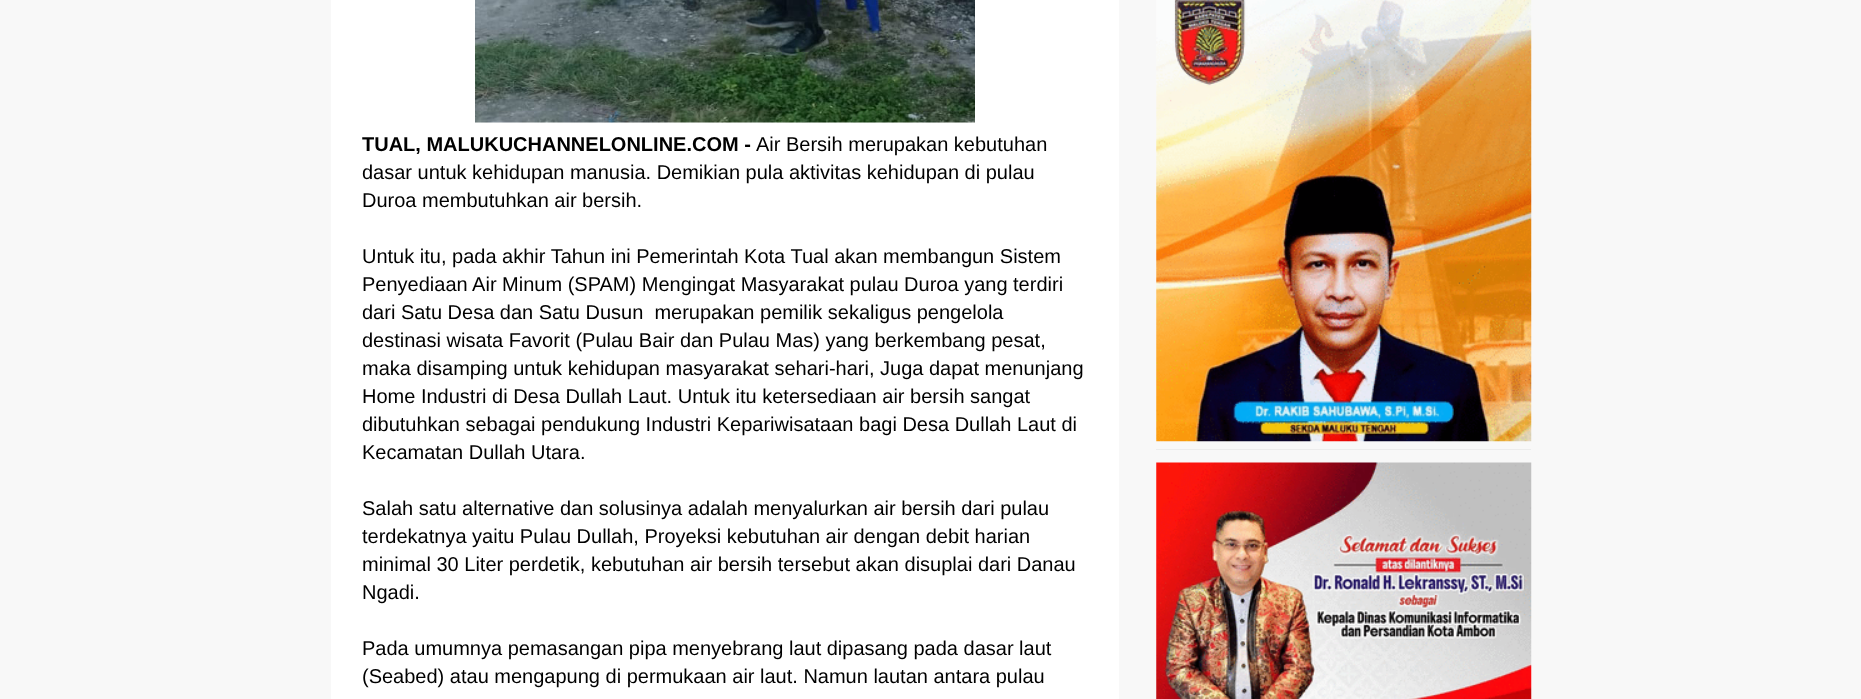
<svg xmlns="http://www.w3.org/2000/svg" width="1861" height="699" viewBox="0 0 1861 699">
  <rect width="100%" height="100%" fill="#f8f8f8"/>
  <path d="M331 0h788v699H331z" fill="#fff"/>
  <image x="475" y="0" width="500" height="123" href="img/1.png"/>
  <path d="M1156 449h375v1H1156z" fill="#ececec"/>
  <image x="1156" y="0" width="376" height="442" href="img/2.png"/>
  <image x="1156" y="462" width="376" height="237" href="img/3.png"/>
  <text x="362" y="151" font-family="Liberation Sans" font-size="20" font-weight="bold" fill="#000">TUAL, MALUKUCHANNELONLINE.COM -</text>
  <g font-family="Liberation Sans" font-size="20" fill="#000">
    <text x="756" y="151">Air Bersih merupakan kebutuhan</text>
    <text x="362" y="179">dasar untuk kehidupan manusia. Demikian pula aktivitas kehidupan di pulau</text>
    <text x="362" y="207">Duroa membutuhkan air bersih.</text>
    <text x="362" y="263">Untuk itu, pada akhir Tahun ini Pemerintah Kota Tual akan membangun Sistem</text>
    <text x="362" y="291">Penyediaan Air Minum (SPAM) Mengingat Masyarakat pulau Duroa yang terdiri</text>
    <text x="362" y="319" xml:space="preserve">dari Satu Desa dan Satu Dusun  merupakan pemilik sekaligus pengelola</text>
    <text x="362" y="347">destinasi wisata Favorit (Pulau Bair dan Pulau Mas) yang berkembang pesat,</text>
    <text x="362" y="375">maka disamping untuk kehidupan masyarakat sehari-hari, Juga dapat menunjang</text>
    <text x="362" y="403">Home Industri di Desa Dullah Laut. Untuk itu ketersediaan air bersih sangat</text>
    <text x="362" y="431">dibutuhkan sebagai pendukung Industri Kepariwisataan bagi Desa Dullah Laut di</text>
    <text x="362" y="459">Kecamatan Dullah Utara.</text>
    <text x="362" y="515">Salah satu alternative dan solusinya adalah menyalurkan air bersih dari pulau</text>
    <text x="362" y="543">terdekatnya yaitu Pulau Dullah, Proyeksi kebutuhan air dengan debit harian</text>
    <text x="362" y="571">minimal 30 Liter perdetik, kebutuhan air bersih tersebut akan disuplai dari Danau</text>
    <text x="362" y="599">Ngadi.</text>
    <text x="362" y="655">Pada umumnya pemasangan pipa menyebrang laut dipasang pada dasar laut</text>
    <text x="362" y="683">(Seabed) atau mengapung di permukaan air laut. Namun lautan antara pulau</text>
  </g>
</svg>
